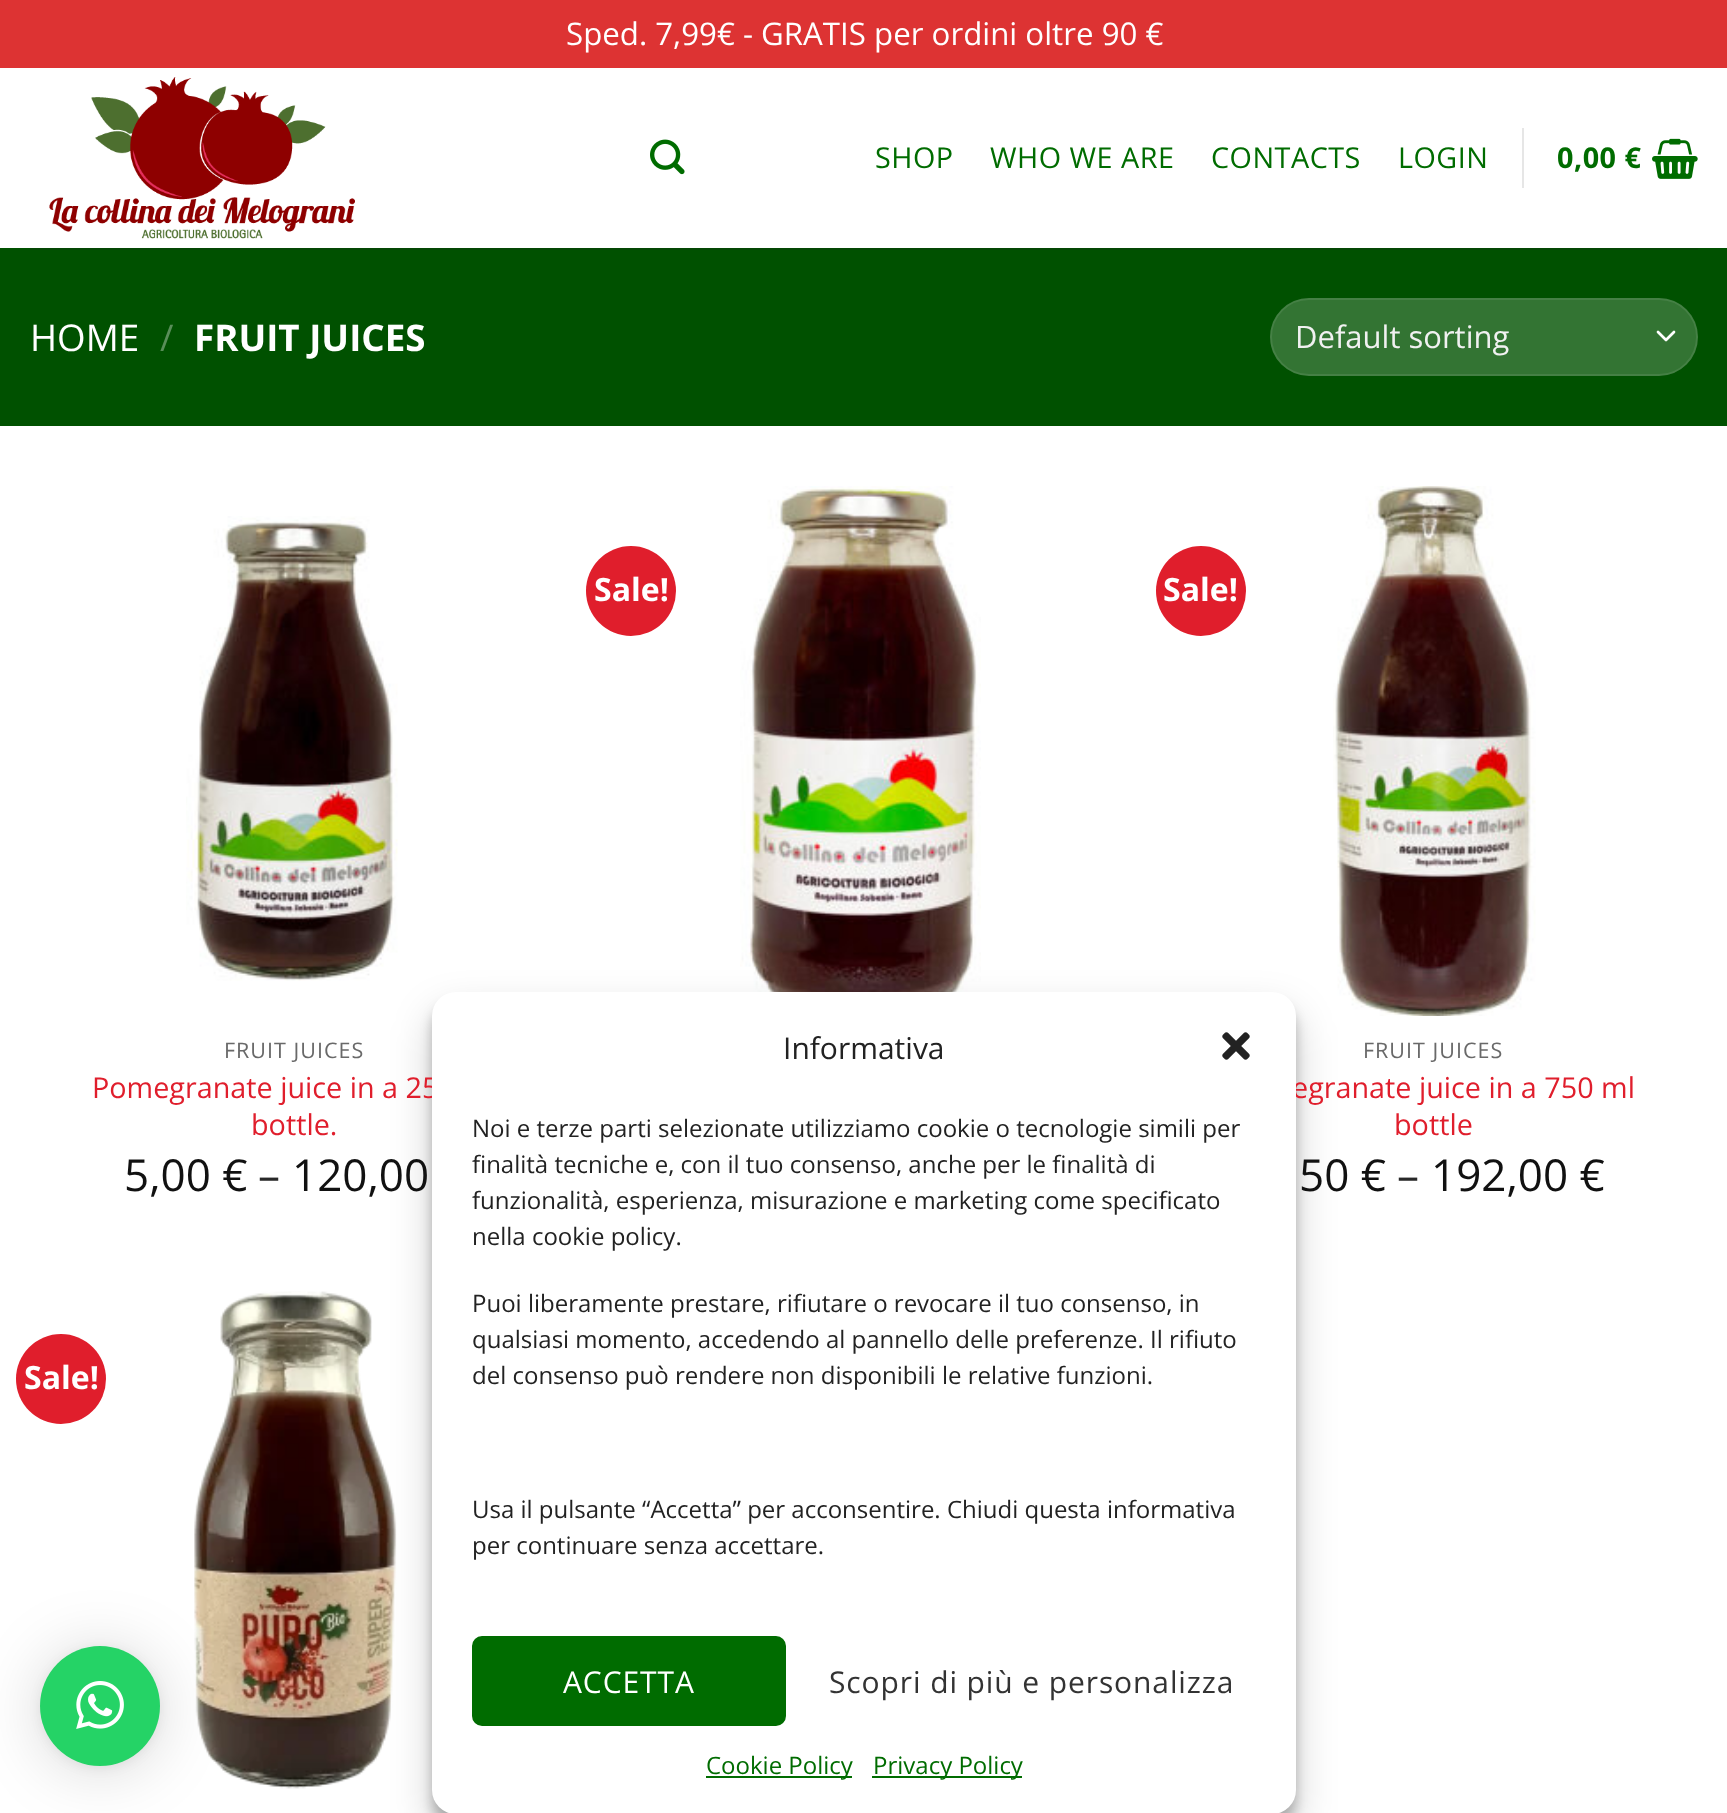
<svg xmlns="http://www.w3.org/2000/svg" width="1727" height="1813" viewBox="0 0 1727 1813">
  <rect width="100%" height="100%" fill="#fff"/>
  <path d="M0 0h1727v68H0z" fill="#d33"/>
  <image x="49" y="77" width="306" height="162" href="img/1.png"/>
  <image x="650" y="139" width="35" height="36" href="img/2.png"/>
  <path d="M1522 128h2v60H1522z" fill="#e6e6e6"/>
  <image x="1652" y="138" width="46" height="41" href="img/3.png"/>
  <path d="M0 248h1727v178H0z" fill="#005100"/>
  <path d="M30 248h1668v2H30z" fill="#044704"/>
  <rect x="1270" y="298" width="428" height="78" rx="39" fill="#337433"/>
  <path d="M1658 332L1666 340L1674 332" fill="none" stroke="#fff" stroke-width="2.7" stroke-linecap="round" stroke-linejoin="round"/>
  <rect x="1271" y="299" width="426" height="76" rx="38" fill="none" stroke="#ffffff17" stroke-width="2"/>
  <image x="186" y="516" width="212" height="465" href="img/4.png"/>
  <circle cx="631" cy="591" r="45" fill="#e01e2c"/>
  <image x="740" y="486" width="241" height="506" href="img/5.png"/>
  <circle cx="1201" cy="591" r="45" fill="#e01e2c"/>
  <image x="1333" y="486" width="203" height="530" href="img/6.png"/>
  <circle cx="61" cy="1379" r="45" fill="#e01e2c"/>
  <image x="194" y="1291" width="203" height="498" href="img/7.png"/>
  <rect x="40" y="1650" width="120" height="120" rx="60" fill="#00000029" filter="blur(32px)"/>
  <rect x="40" y="1648" width="120" height="120" rx="60" fill="#0000000f" filter="blur(6px)"/>
  <circle cx="100" cy="1706" r="60" fill="#25d366"/>
  <image x="76" y="1681" width="48" height="48" href="img/8.png"/>
  <rect x="432" y="1004" width="864" height="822" rx="24" fill="#0000003b" filter="blur(6px)"/>
  <rect x="432" y="1012" width="864" height="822" rx="24" fill="#00000030" filter="blur(20px)"/>
  <text x="566" y="45" font-family="Open Sans" font-size="31.25" fill="#fff">Sped. 7,99€ - GRATIS per ordini oltre 90 €</text>
  <g font-family="Open Sans" font-size="28.75" letter-spacing="0.5" fill="#006c00">
    <text x="875" y="168">SHOP</text>
    <text x="990" y="168">WHO WE ARE</text>
    <text x="1211" y="168">CONTACTS</text>
    <text x="1398" y="168">LOGIN</text>
  </g>
  <text x="1557" y="168" font-family="Open Sans" font-size="28.75" font-weight="bold" letter-spacing="0.5" fill="#006c00">0,00 €</text>
  <text x="30" y="351" font-family="Open Sans" font-size="36.75" fill="#fff">HOME</text>
  <text x="160" y="351" font-family="Open Sans" font-size="36.75" fill="#598e59">/</text>
  <text x="194" y="351" font-family="Open Sans" font-size="36.75" font-weight="bold" fill="#fff">FRUIT JUICES</text>
  <text x="1295" y="348" font-family="Open Sans" font-size="31" fill="#f1f1f1">Default sorting</text>
  <text x="224" y="1058" font-family="Open Sans" font-size="21.5" letter-spacing="1" fill="#696969">FRUIT JUICES</text>
  <g font-family="Open Sans" font-size="28.75" fill="#e01e2c">
    <text x="92" y="1098">Pomegranate juice in a 25</text>
    <text x="251" y="1135">bottle.</text>
  </g>
  <text x="124" y="1191" font-family="Open Sans" font-size="44" fill="#111">5,00 €</text>
  <text x="258" y="1191" font-family="Open Sans" font-size="44" fill="#282828">–</text>
  <text x="292" y="1191" font-family="Open Sans" font-size="44" fill="#111">120,00</text>
  <g font-family="Open Sans" font-size="32" font-weight="bold" fill="#fff">
    <text x="594" y="601">Sale!</text>
    <text x="1163" y="601">Sale!</text>
  </g>
  <text x="1363" y="1058" font-family="Open Sans" font-size="21.5" letter-spacing="1" fill="#696969">FRUIT JUICES</text>
  <g font-family="Open Sans" font-size="28.75" fill="#e01e2c">
    <text x="1292" y="1098">egranate juice in a 750 ml</text>
    <text x="1394" y="1135">bottle</text>
  </g>
  <text x="1299" y="1191" font-family="Open Sans" font-size="44" fill="#111">50 €</text>
  <text x="1397" y="1191" font-family="Open Sans" font-size="44" fill="#282828">–</text>
  <text x="1431" y="1191" font-family="Open Sans" font-size="44" fill="#111">192,00 €</text>
  <text x="24" y="1389" font-family="Open Sans" font-size="32" font-weight="bold" fill="#fff">Sale!</text>
  <rect x="432" y="992" width="864" height="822" rx="24" fill="#fff"/>
  <text x="783" y="1059" font-family="Open Sans" font-size="30" fill="#222">Informativa</text>
  <image x="1222" y="1032" width="28" height="28" href="img/9.png"/>
  <g font-family="Open Sans" font-size="24" fill="#222">
    <text x="472" y="1137">Noi e terze parti selezionate utilizziamo cookie o tecnologie simili per</text>
    <text x="472" y="1173">finalità tecniche e, con il tuo consenso, anche per le finalità di</text>
    <text x="472" y="1209">funzionalità, esperienza, misurazione e marketing come specificato</text>
    <text x="472" y="1245">nella cookie policy.</text>
    <text x="472" y="1312">Puoi liberamente prestare, rifiutare o revocare il tuo consenso, in</text>
    <text x="472" y="1348">qualsiasi momento, accedendo al pannello delle preferenze. Il rifiuto</text>
    <text x="472" y="1384">del consenso può rendere non disponibili le relative funzioni.</text>
    <text x="472" y="1518">Usa il pulsante “Accetta” per acconsentire. Chiudi questa informativa</text>
    <text x="472" y="1554">per continuare senza accettare.</text>
  </g>
  <rect x="473" y="1637" width="312" height="88" rx="9" fill="#006c00" stroke="#006c00" stroke-width="2"/>
  <text x="563" y="1693" font-family="Open Sans" font-size="30" letter-spacing="0.9" fill="#fff">ACCETTA</text>
  <text x="829" y="1693" font-family="Open Sans" font-size="30" letter-spacing="0.9" fill="#333">Scopri di più e personalizza</text>
  <path d="M706 1776h146v2H706z" fill="#006c00"/>
  <text x="706" y="1774" font-family="Open Sans" font-size="24" fill="#006c00">Cookie Policy</text>
  <path d="M872 1776h150v2H872z" fill="#006c00"/>
  <text x="873" y="1774" font-family="Open Sans" font-size="24" fill="#006c00">Privacy Policy</text>
</svg>
